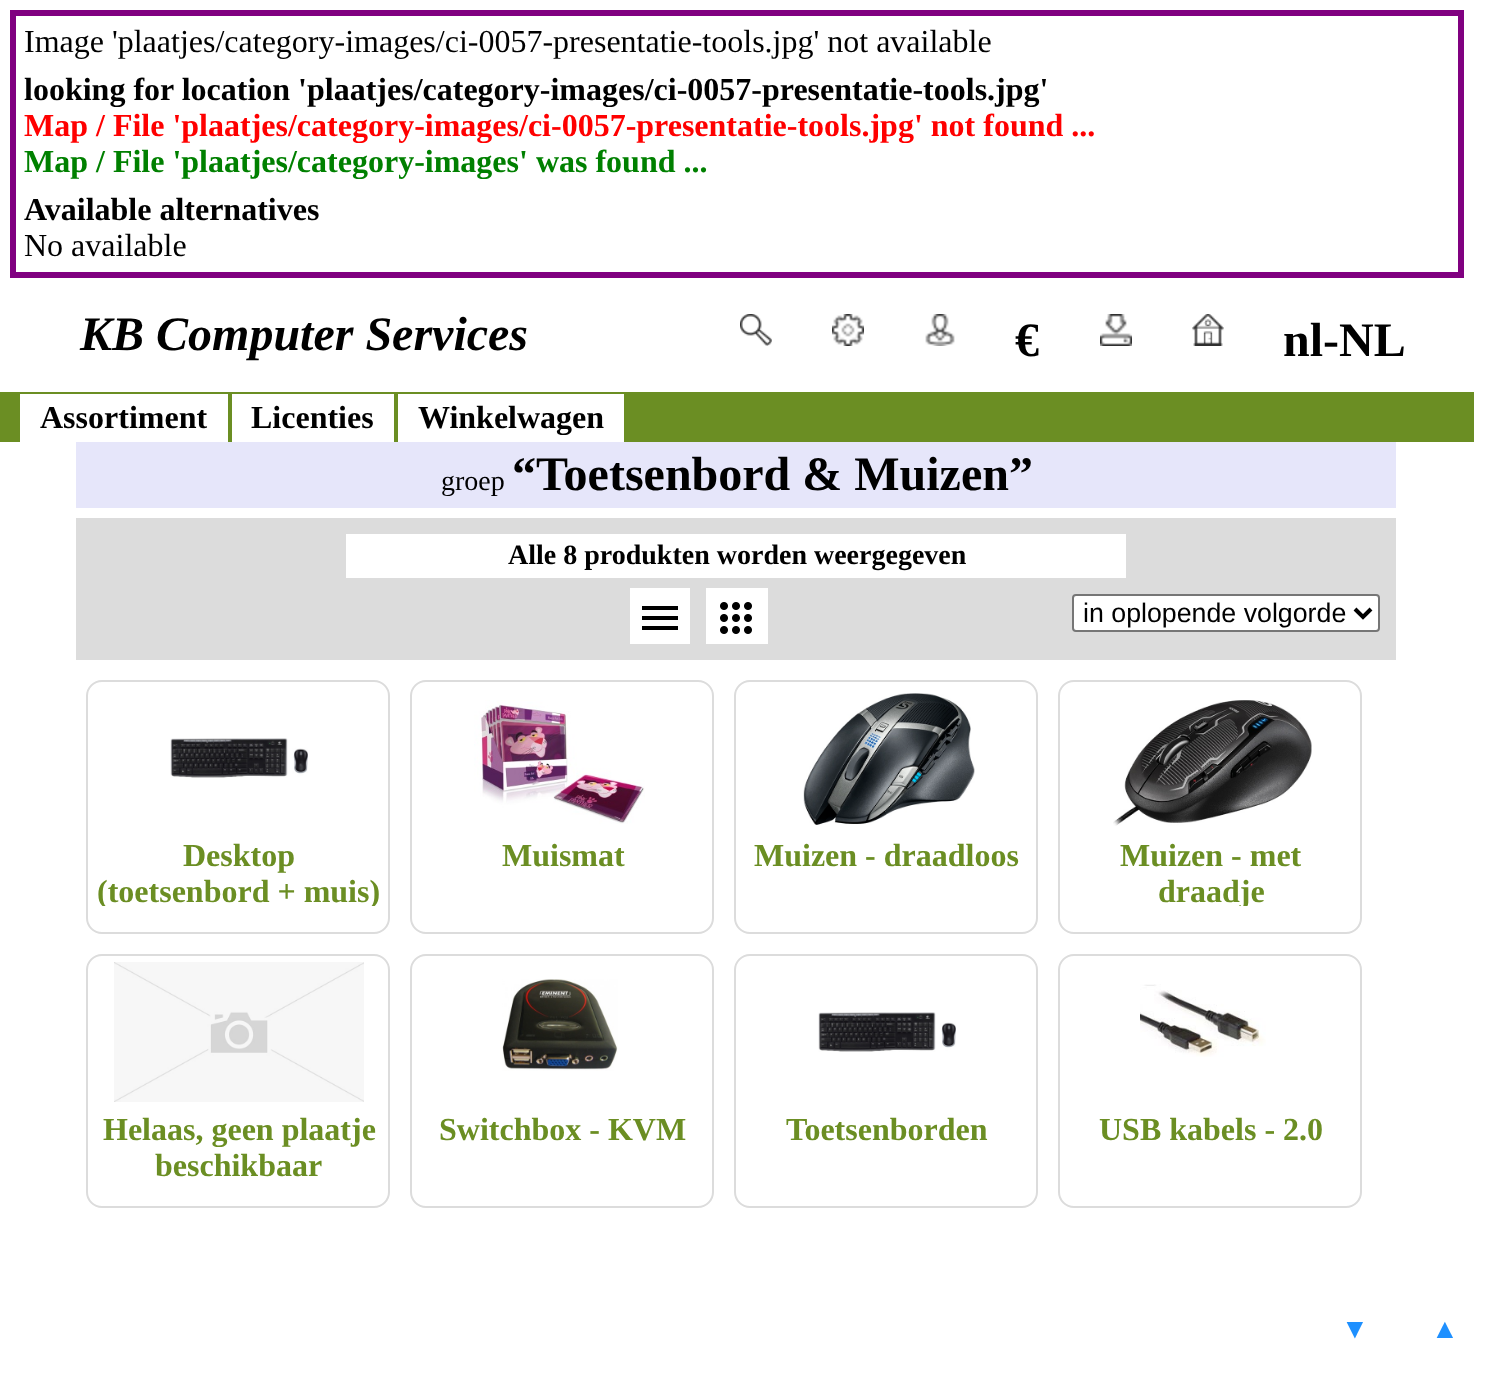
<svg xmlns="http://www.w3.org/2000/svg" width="1503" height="1378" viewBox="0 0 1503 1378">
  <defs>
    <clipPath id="clip1"><path d="M94 838h288v68H94z"/></clipPath>
    <clipPath id="clip2"><path d="M1066 838h288v68H1066z"/></clipPath>
  </defs>
  <rect width="100%" height="100%" fill="#fff"/>
  <path d="M13 13h1448v262H13z" fill="none" stroke="#800080" stroke-width="6"/>
  <image x="740" y="314" width="32" height="32" href="img/1.png"/>
  <image x="832" y="314" width="32" height="32" href="img/2.png"/>
  <image x="925" y="314" width="30" height="32" href="img/3.png"/>
  <image x="1100" y="314" width="32" height="32" href="img/4.png"/>
  <image x="1192" y="314" width="32" height="32" href="img/5.png"/>
  <path d="M0 392h1474v50H0z" fill="#6b8e23"/>
  <path d="M20 394h208v48H20z" fill="#fff"/>
  <path d="M232 394h162v48H232z" fill="#fff"/>
  <path d="M398 394h226v48H398z" fill="#fff"/>
  <path d="M76 442h1320v66H76z" fill="#e6e6fa"/>
  <path d="M76 518h1320v142H76z" fill="#dcdcdc"/>
  <path d="M346 534h780v44H346z" fill="#fff"/>
  <path d="M630 588h60v56H630z" fill="#fff"/>
  <path d="M642 630V626H678V630ZM642 620V616H678V620ZM642 610V606H678V610Z" fill="#000"/>
  <path d="M706 588h62v56H706z" fill="#fff"/>
  <image x="720" y="602" width="32" height="32" href="img/6.png"/>
  <rect x="1073" y="595" width="306" height="36" rx="3" fill="#fff" stroke="#767676" stroke-width="2"/>
  <path d="M1355 609L1363 617L1371 609" fill="none" stroke="#000" stroke-width="4"/>
  <rect x="87" y="681" width="302" height="252" rx="15" fill="none" stroke="#dcdcdc" stroke-width="2"/>
  <image x="170" y="738" width="138" height="40" href="img/7.png"/>
  <rect x="411" y="681" width="302" height="252" rx="15" fill="none" stroke="#dcdcdc" stroke-width="2"/>
  <image x="474" y="700" width="171" height="124" href="img/8.png"/>
  <rect x="735" y="681" width="302" height="252" rx="15" fill="none" stroke="#dcdcdc" stroke-width="2"/>
  <image x="803" y="693" width="172" height="132" href="img/9.png"/>
  <rect x="1059" y="681" width="302" height="252" rx="15" fill="none" stroke="#dcdcdc" stroke-width="2"/>
  <image x="1113" y="700" width="199" height="126" href="img/10.png"/>
  <rect x="87" y="955" width="302" height="252" rx="15" fill="none" stroke="#dcdcdc" stroke-width="2"/>
  <image x="114" y="962" width="250" height="140" href="img/11.png"/>
  <rect x="411" y="955" width="302" height="252" rx="15" fill="none" stroke="#dcdcdc" stroke-width="2"/>
  <image x="502" y="979" width="116" height="92" href="img/12.png"/>
  <rect x="735" y="955" width="302" height="252" rx="15" fill="none" stroke="#dcdcdc" stroke-width="2"/>
  <image x="818" y="1012" width="138" height="40" href="img/13.png"/>
  <rect x="1059" y="955" width="302" height="252" rx="15" fill="none" stroke="#dcdcdc" stroke-width="2"/>
  <image x="1140" y="984" width="126" height="73" href="img/14.png"/>
  <text x="24" y="52" font-family="Liberation Serif" font-size="32" fill="#000">Image 'plaatjes/category-images/ci-0057-presentatie-tools.jpg' not available</text>
  <text x="24" y="100" font-family="Liberation Serif" font-size="32" font-weight="bold" fill="#000">looking for location 'plaatjes/category-images/ci-0057-presentatie-tools.jpg'</text>
  <text x="24" y="136" font-family="Liberation Serif" font-size="32" font-weight="bold" fill="#f00">Map / File 'plaatjes/category-images/ci-0057-presentatie-tools.jpg' not found ...</text>
  <text x="24" y="172" font-family="Liberation Serif" font-size="32" font-weight="bold" fill="#008000">Map / File 'plaatjes/category-images' was found ...</text>
  <text x="24" y="220" font-family="Liberation Serif" font-size="32" font-weight="bold" fill="#000">Available alternatives</text>
  <text x="24" y="256" font-family="Liberation Serif" font-size="32" fill="#000">No available</text>
  <text x="80" y="350" font-family="Liberation Serif" font-size="48" font-weight="bold" font-style="italic" fill="#000">KB Computer Services</text>
  <g font-family="Liberation Serif" font-size="48" font-weight="bold" fill="#000">
    <text x="1015" y="356">€</text>
    <text x="1283" y="356">nl-NL</text>
  </g>
  <g font-family="Liberation Serif" font-size="32" font-weight="bold" fill="#000">
    <text x="40" y="428">Assortiment</text>
    <text x="251" y="428">Licenties</text>
    <text x="418" y="428">Winkelwagen</text>
  </g>
  <text x="441" y="490" font-family="Liberation Serif" font-size="28" fill="#000">groep</text>
  <text x="512" y="490" font-family="Liberation Serif" font-size="48" font-weight="bold" fill="#000">“Toetsenbord &amp; Muizen”</text>
  <text x="508" y="564" font-family="Liberation Serif" font-size="28" font-weight="bold" fill="#000">Alle 8 produkten worden weergegeven</text>
  <text x="1083" y="622" font-family="Liberation Sans" font-size="26.75" fill="#000">in oplopende volgorde</text>
  <text x="183" y="866" font-family="Liberation Serif" font-size="32" font-weight="bold" fill="#6b8e23">Desktop</text>
  <g clip-path="url(#clip1)">
    <text x="97" y="902" font-family="Liberation Serif" font-size="32" font-weight="bold" fill="#6b8e23">(toetsenbord + muis)</text>
  </g>
  <g font-family="Liberation Serif" font-size="32" font-weight="bold" fill="#6b8e23">
    <text x="502" y="866">Muismat</text>
    <text x="754" y="866">Muizen - draadloos</text>
    <text x="1120" y="866">Muizen - met</text>
  </g>
  <g clip-path="url(#clip2)">
    <text x="1158" y="902" font-family="Liberation Serif" font-size="32" font-weight="bold" fill="#6b8e23">draadje</text>
  </g>
  <g font-family="Liberation Serif" font-size="32" font-weight="bold" fill="#6b8e23">
    <text x="103" y="1140">Helaas, geen plaatje</text>
    <text x="155" y="1176">beschikbaar</text>
    <text x="439" y="1140">Switchbox - KVM</text>
    <text x="786" y="1140">Toetsenborden</text>
    <text x="1099" y="1140">USB kabels - 2.0</text>
  </g>
  <g font-family="Liberation Sans" font-size="28" font-weight="bold" fill="#1e90ff">
    <text x="1341" y="1338">▼</text>
    <text x="1431" y="1338">▲</text>
  </g>
</svg>
